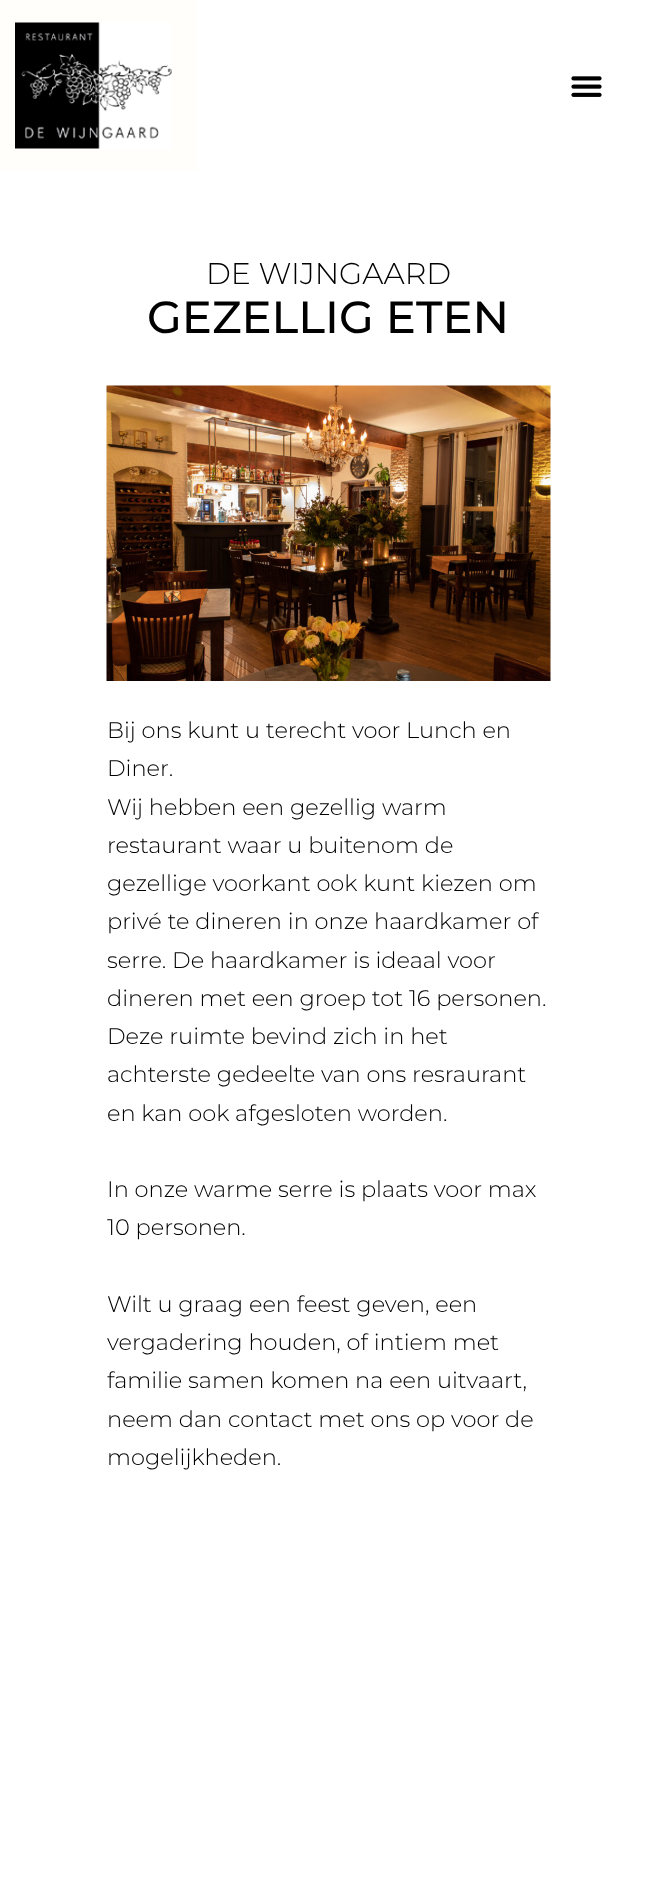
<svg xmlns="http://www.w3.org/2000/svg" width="657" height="1879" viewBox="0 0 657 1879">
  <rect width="100%" height="100%" fill="#fff"/>
  <path d="M0 0h197v171H0z" fill="#fffefb"/>
  <image x="15" y="22" width="157" height="127" href="img/1.png"/>
  <image x="571" y="76" width="31" height="21" href="img/2.png"/>
  <image x="106" y="385" width="445" height="296" href="img/3.png"/>
  <text x="206" y="284" font-family="Montserrat" font-size="30" font-weight="300" fill="#000">DE WIJNGAARD</text>
  <text x="147" y="333" font-family="Montserrat" font-size="45" font-weight="500" fill="#000">GEZELLIG ETEN</text>
  <g font-family="Montserrat" font-size="22.5" font-weight="300" fill="#000">
    <text x="107" y="738">Bij ons kunt u terecht voor Lunch en</text>
    <text x="107" y="776">Diner.</text>
    <text x="107" y="815">Wij hebben een gezellig warm</text>
    <text x="107" y="853">restaurant waar u buitenom de</text>
    <text x="107" y="891">gezellige voorkant ook kunt kiezen om</text>
    <text x="107" y="929">privé te dineren in onze haardkamer of</text>
    <text x="107" y="968">serre. De haardkamer is ideaal voor</text>
    <text x="107" y="1006">dineren met een groep tot 16 personen.</text>
    <text x="107" y="1044">Deze ruimte bevind zich in het</text>
    <text x="107" y="1082">achterste gedeelte van ons resraurant</text>
    <text x="107" y="1121">en kan ook afgesloten worden.</text>
    <text x="107" y="1197">In onze warme serre is plaats voor max</text>
    <text x="107" y="1235">10 personen.</text>
    <text x="107" y="1312">Wilt u graag een feest geven, een</text>
    <text x="107" y="1350">vergadering houden, of intiem met</text>
    <text x="107" y="1388">familie samen komen na een uitvaart,</text>
    <text x="107" y="1427">neem dan contact met ons op voor de</text>
    <text x="107" y="1465">mogelijkheden.</text>
  </g>
</svg>
